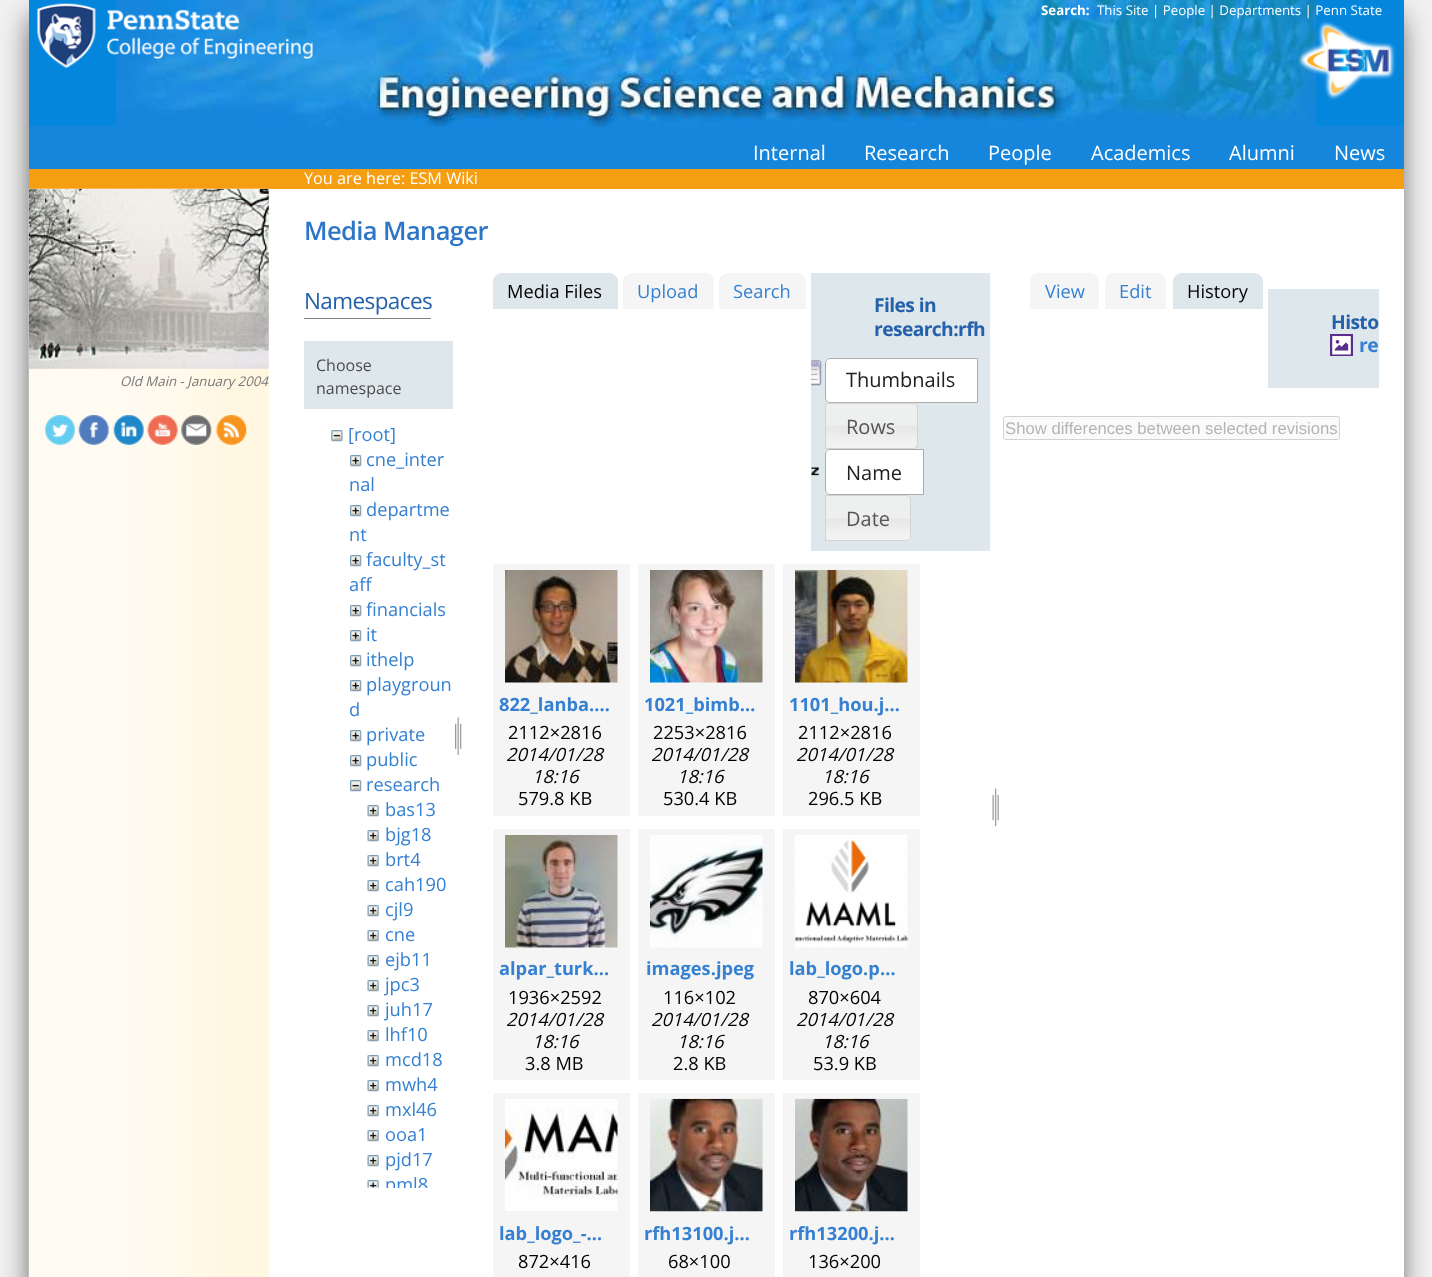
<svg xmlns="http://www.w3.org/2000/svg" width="1432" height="1277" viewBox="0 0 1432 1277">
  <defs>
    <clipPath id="clip1"><path d="M304 421h149v767H304z"/></clipPath>
  </defs>
  <rect width="100%" height="100%" fill="#f1f1f1"/>
  <path d="M33 18h1365v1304H33z" fill="#000000bf" filter="blur(15px)"/>
  <path d="M268 189h1136v1088H268z" fill="#fff"/>
  <path d="M29 0h1375v126H29z" fill="#0486dd"/>
  <path d="M29 126h1375v43H29z" fill="#1686dc"/>
  <image x="116" y="0" width="1201" height="127" href="img/1.png"/>
  <image x="37" y="3" width="276" height="65" href="img/2.png"/>
  <image x="1297" y="21" width="99" height="79" href="img/3.png"/>
  <path d="M29 169h1375v20H29z" fill="#f69e12"/>
  <image x="28" y="188" width="241" height="1089" href="img/4.png"/>
  <image x="28" y="188" width="241" height="181" href="img/5.png"/>
  <image x="45" y="415" width="30" height="30" href="img/6.png"/>
  <image x="78" y="415" width="31" height="30" href="img/7.png"/>
  <image x="113" y="415" width="31" height="30" href="img/8.png"/>
  <image x="147" y="415" width="31" height="30" href="img/9.png"/>
  <image x="181" y="415" width="31" height="30" href="img/10.png"/>
  <image x="216" y="415" width="31" height="30" href="img/11.png"/>
  <path d="M304 318h127v1H304z" fill="#808080"/>
  <path d="M304 341h149v68H304z" fill="#dee7ec"/>
  <image x="331" y="430" width="12" height="12" href="img/12.png"/>
  <image x="350" y="455" width="12" height="12" href="img/13.png"/>
  <image x="350" y="505" width="12" height="12" href="img/13.png"/>
  <image x="350" y="555" width="12" height="12" href="img/13.png"/>
  <image x="350" y="605" width="12" height="12" href="img/13.png"/>
  <image x="350" y="630" width="12" height="12" href="img/13.png"/>
  <image x="350" y="655" width="12" height="12" href="img/13.png"/>
  <image x="350" y="680" width="12" height="12" href="img/13.png"/>
  <image x="350" y="730" width="12" height="12" href="img/13.png"/>
  <image x="350" y="755" width="12" height="12" href="img/13.png"/>
  <image x="350" y="780" width="12" height="12" href="img/14.png"/>
  <image x="367" y="805" width="12" height="12" href="img/15.png"/>
  <image x="367" y="830" width="12" height="12" href="img/15.png"/>
  <image x="367" y="855" width="12" height="12" href="img/15.png"/>
  <image x="367" y="880" width="12" height="12" href="img/15.png"/>
  <image x="367" y="905" width="12" height="12" href="img/15.png"/>
  <image x="367" y="930" width="12" height="12" href="img/15.png"/>
  <image x="367" y="955" width="12" height="12" href="img/15.png"/>
  <image x="367" y="980" width="12" height="12" href="img/15.png"/>
  <image x="367" y="1005" width="12" height="12" href="img/15.png"/>
  <image x="367" y="1030" width="12" height="12" href="img/15.png"/>
  <image x="367" y="1055" width="12" height="12" href="img/15.png"/>
  <image x="367" y="1080" width="12" height="12" href="img/15.png"/>
  <image x="367" y="1105" width="12" height="12" href="img/15.png"/>
  <image x="367" y="1130" width="12" height="12" href="img/15.png"/>
  <image x="367" y="1155" width="12" height="12" href="img/15.png"/>
  <image x="367" y="1180" width="12" height="8" href="img/16.png"/>
  <image x="455" y="716" width="7" height="40" href="img/17.png"/>
  <path d="M502 273H609C614 273 618 277 618 282V309H493V282C493 277 497 273 502 273Z" fill="#dee7ec"/>
  <path d="M632 273H705C710 273 714 277 714 282V309H623V282C623 277 627 273 632 273Z" fill="#f5f5f5"/>
  <path d="M728 273H797C802 273 806 277 806 282V309H719V282C719 277 723 273 728 273Z" fill="#f5f5f5"/>
  <path d="M811 273h179v278H811z" fill="#dee7ec"/>
  <image x="811" y="359" width="11" height="27" href="img/18.png"/>
  <path d="M830 358H978V403H830C827 403 825 401 825 398V363C825 360 827 358 830 358Z" fill="#fff"/>
  <image x="825" y="357" width="152" height="43" href="img/19.png"/>
  <path d="M830 358.5H977.5V402.5H830C827.5 402.5 825.5 400.5 825.5 398V363C825.5 360.5 827.5 358.5 830 358.5Z" fill="none" stroke="#aaa"/>
  <image x="825" y="402" width="92" height="47" href="img/20.png"/>
  <path d="M825.5 403.5H913C915.5 403.5 917.5 405.5 917.5 408V444C917.5 446.5 915.5 448.5 913 448.5H825.5Z" fill="none" stroke="#d3d3d3"/>
  <image x="811" y="467" width="8" height="9" href="img/21.png"/>
  <path d="M830 449H924V495H830C827 495 825 493 825 490V454C825 451 827 449 830 449Z" fill="#fff"/>
  <image x="825" y="449" width="4" height="46" href="img/22.png"/>
  <path d="M830 449.5H923.5V494.5H830C827.5 494.5 825.5 492.5 825.5 490V454C825.5 451.5 827.5 449.5 830 449.5Z" fill="none" stroke="#aaa"/>
  <image x="826" y="495" width="85" height="46" href="img/23.png"/>
  <path d="M825.5 495.5H906C908.5 495.5 910.5 497.5 910.5 500V536C910.5 538.5 908.5 540.5 906 540.5H825.5Z" fill="none" stroke="#d3d3d3"/>
  <path d="M493 564h137v252H493z" fill="#f5f5f5"/>
  <image x="505" y="570" width="113" height="113" href="img/24.png"/>
  <path d="M638 564h137v252H638z" fill="#f5f5f5"/>
  <image x="650" y="570" width="113" height="113" href="img/25.png"/>
  <path d="M783 564h137v252H783z" fill="#f5f5f5"/>
  <image x="795" y="570" width="113" height="113" href="img/26.png"/>
  <path d="M493 829h137v251H493z" fill="#f5f5f5"/>
  <image x="505" y="835" width="113" height="113" href="img/27.png"/>
  <path d="M638 829h137v251H638z" fill="#f5f5f5"/>
  <image x="650" y="835" width="113" height="113" href="img/28.png"/>
  <path d="M783 829h137v251H783z" fill="#f5f5f5"/>
  <image x="795" y="835" width="113" height="113" href="img/29.png"/>
  <path d="M493 1093h137v184H493z" fill="#f5f5f5"/>
  <image x="505" y="1099" width="113" height="112" href="img/30.png"/>
  <path d="M638 1093h137v184H638z" fill="#f5f5f5"/>
  <image x="650" y="1098" width="113" height="114" href="img/31.png"/>
  <path d="M783 1093h137v184H783z" fill="#f5f5f5"/>
  <image x="795" y="1098" width="113" height="114" href="img/32.png"/>
  <image x="992" y="787" width="7" height="40" href="img/33.png"/>
  <path d="M1039 273H1090C1095 273 1099 277 1099 282V309H1030V282C1030 277 1034 273 1039 273Z" fill="#f5f5f5"/>
  <path d="M1114 273H1157C1162 273 1166 277 1166 282V309H1105V282C1105 277 1109 273 1114 273Z" fill="#f5f5f5"/>
  <path d="M1182 273H1254C1259 273 1263 277 1263 282V309H1173V282C1173 277 1177 273 1182 273Z" fill="#dee7ec"/>
  <path d="M1268 289h111v99H1268z" fill="#dee7ec"/>
  <image x="1330" y="334" width="24" height="22" href="img/34.png"/>
  <rect x="1003.5" y="416.5" width="336" height="23" rx="2" fill="#fafafa" stroke="#d2d2d2"/>
  <text x="1041" y="15" font-family="Open Sans" font-size="13.3" font-weight="bold" fill="#fff">Search:</text>
  <text x="1097" y="15" font-family="Open Sans" font-size="13.3" fill="#fff">This Site | People | Departments | Penn State</text>
  <g font-family="Open Sans" font-size="20" fill="#fff">
    <text x="753" y="160">Internal</text>
    <text x="864" y="160">Research</text>
    <text x="988" y="160">People</text>
    <text x="1091" y="160">Academics</text>
    <text x="1229" y="160">Alumni</text>
    <text x="1334" y="160">News</text>
  </g>
  <text x="304" y="184" font-family="Open Sans" font-size="16.25" fill="#fff">You are here: ESM Wiki</text>
  <text x="120" y="386" font-family="Open Sans" font-size="13.3" font-style="italic" fill="#777">Old Main - January 2004</text>
  <text x="304" y="240" font-family="Open Sans" font-size="25.5" font-weight="600" letter-spacing="-0.6" fill="#2c76c7">Media Manager</text>
  <text x="304" y="309" font-family="Open Sans" font-size="22.5" letter-spacing="-0.6" fill="#2461aa">Namespaces</text>
  <g font-family="Open Sans" font-size="16" fill="#4c4c4c">
    <text x="316" y="371">Choose</text>
    <text x="316" y="394">namespace</text>
  </g>
  <g font-family="Open Sans" font-size="18.25" fill="#3580d1">
    <text x="348" y="441">[root]</text>
    <text x="366" y="466">cne_inter</text>
    <text x="349" y="491">nal</text>
    <text x="366" y="516">departme</text>
    <text x="349" y="541">nt</text>
    <text x="366" y="566">faculty_st</text>
    <text x="349" y="591">aff</text>
    <text x="366" y="616">financials</text>
    <text x="366" y="641">it</text>
    <text x="366" y="666">ithelp</text>
    <text x="366" y="691">playgroun</text>
    <text x="349" y="716">d</text>
    <text x="366" y="741">private</text>
    <text x="366" y="766">public</text>
    <text x="366" y="791">research</text>
    <text x="385" y="816">bas13</text>
    <text x="385" y="841">bjg18</text>
    <text x="385" y="866">brt4</text>
    <text x="385" y="891">cah190</text>
    <text x="385" y="916">cjl9</text>
    <text x="385" y="941">cne</text>
    <text x="385" y="966">ejb11</text>
    <text x="385" y="991">jpc3</text>
    <text x="385" y="1016">juh17</text>
    <text x="385" y="1041">lhf10</text>
    <text x="385" y="1066">mcd18</text>
    <text x="385" y="1091">mwh4</text>
    <text x="385" y="1116">mxl46</text>
    <text x="385" y="1141">ooa1</text>
    <text x="385" y="1166">pjd17</text>
  </g>
  <g clip-path="url(#clip1)">
    <text x="385" y="1191" font-family="Open Sans" font-size="18.25" fill="#3580d1">pml8</text>
  </g>
  <text x="507" y="298" font-family="Open Sans" font-size="18.25" fill="#000">Media Files</text>
  <g font-family="Open Sans" font-size="18.25" fill="#3580d1">
    <text x="637" y="298">Upload</text>
    <text x="733" y="298">Search</text>
  </g>
  <g font-family="Open Sans" font-size="19.25" font-weight="bold" letter-spacing="-0.6" fill="#2461aa">
    <text x="874" y="312">Files in</text>
    <text x="874" y="336">research:rfh</text>
  </g>
  <text x="846" y="387" font-family="Open Sans" font-size="20" fill="#212121">Thumbnails</text>
  <text x="846" y="434" font-family="Open Sans" font-size="20" fill="#555">Rows</text>
  <text x="846" y="480" font-family="Open Sans" font-size="20" fill="#212121">Name</text>
  <text x="846" y="526" font-family="Open Sans" font-size="20" fill="#555">Date</text>
  <text x="499" y="711" font-family="Open Sans" font-size="18.25" font-weight="bold" fill="#3580d1">822_lanba.…</text>
  <text x="508" y="739" font-family="Open Sans" font-size="18.25" fill="#000">2112×2816</text>
  <g font-family="Open Sans" font-size="18.25" font-style="italic" fill="#000">
    <text x="506" y="761">2014/01/28</text>
    <text x="532" y="783">18:16</text>
  </g>
  <text x="518" y="805" font-family="Open Sans" font-size="18.25" fill="#000">579.8 KB</text>
  <text x="644" y="711" font-family="Open Sans" font-size="18.25" font-weight="bold" fill="#3580d1">1021_bimb…</text>
  <text x="653" y="739" font-family="Open Sans" font-size="18.25" fill="#000">2253×2816</text>
  <g font-family="Open Sans" font-size="18.25" font-style="italic" fill="#000">
    <text x="651" y="761">2014/01/28</text>
    <text x="677" y="783">18:16</text>
  </g>
  <text x="663" y="805" font-family="Open Sans" font-size="18.25" fill="#000">530.4 KB</text>
  <text x="789" y="711" font-family="Open Sans" font-size="18.25" font-weight="bold" fill="#3580d1">1101_hou.j…</text>
  <text x="798" y="739" font-family="Open Sans" font-size="18.25" fill="#000">2112×2816</text>
  <g font-family="Open Sans" font-size="18.25" font-style="italic" fill="#000">
    <text x="796" y="761">2014/01/28</text>
    <text x="822" y="783">18:16</text>
  </g>
  <text x="808" y="805" font-family="Open Sans" font-size="18.25" fill="#000">296.5 KB</text>
  <text x="499" y="975" font-family="Open Sans" font-size="18.25" font-weight="bold" fill="#3580d1">alpar_turk…</text>
  <text x="508" y="1004" font-family="Open Sans" font-size="18.25" fill="#000">1936×2592</text>
  <g font-family="Open Sans" font-size="18.25" font-style="italic" fill="#000">
    <text x="506" y="1026">2014/01/28</text>
    <text x="532" y="1048">18:16</text>
  </g>
  <text x="525" y="1070" font-family="Open Sans" font-size="18.25" fill="#000">3.8 MB</text>
  <text x="646" y="975" font-family="Open Sans" font-size="18.25" font-weight="bold" fill="#3580d1">images.jpeg</text>
  <text x="663" y="1004" font-family="Open Sans" font-size="18.25" fill="#000">116×102</text>
  <g font-family="Open Sans" font-size="18.25" font-style="italic" fill="#000">
    <text x="651" y="1026">2014/01/28</text>
    <text x="677" y="1048">18:16</text>
  </g>
  <text x="673" y="1070" font-family="Open Sans" font-size="18.25" fill="#000">2.8 KB</text>
  <text x="789" y="975" font-family="Open Sans" font-size="18.25" font-weight="bold" fill="#3580d1">lab_logo.p…</text>
  <text x="808" y="1004" font-family="Open Sans" font-size="18.25" fill="#000">870×604</text>
  <g font-family="Open Sans" font-size="18.25" font-style="italic" fill="#000">
    <text x="796" y="1026">2014/01/28</text>
    <text x="822" y="1048">18:16</text>
  </g>
  <text x="813" y="1070" font-family="Open Sans" font-size="18.25" fill="#000">53.9 KB</text>
  <text x="499" y="1240" font-family="Open Sans" font-size="18.25" font-weight="bold" fill="#3580d1">lab_logo_-…</text>
  <text x="518" y="1268" font-family="Open Sans" font-size="18.25" fill="#000">872×416</text>
  <text x="644" y="1240" font-family="Open Sans" font-size="18.25" font-weight="bold" fill="#3580d1">rfh13100.j…</text>
  <text x="668" y="1268" font-family="Open Sans" font-size="18.25" fill="#000">68×100</text>
  <text x="789" y="1240" font-family="Open Sans" font-size="18.25" font-weight="bold" fill="#3580d1">rfh13200.j…</text>
  <text x="808" y="1268" font-family="Open Sans" font-size="18.25" fill="#000">136×200</text>
  <g font-family="Open Sans" font-size="18.25" fill="#3580d1">
    <text x="1045" y="298">View</text>
    <text x="1119" y="298">Edit</text>
  </g>
  <text x="1187" y="298" font-family="Open Sans" font-size="18.25" fill="#000">History</text>
  <text x="1331" y="329" font-family="Open Sans" font-size="19.25" font-weight="bold" letter-spacing="-0.6" fill="#2461aa">Histo</text>
  <text x="1359" y="352" font-family="Open Sans" font-size="19.25" font-weight="bold" letter-spacing="-0.6" fill="#3580d1">re</text>
  <text x="1005" y="434" font-family="Liberation Sans" font-size="16.7" fill="#b4b4b4">Show differences between selected revisions</text>
</svg>
